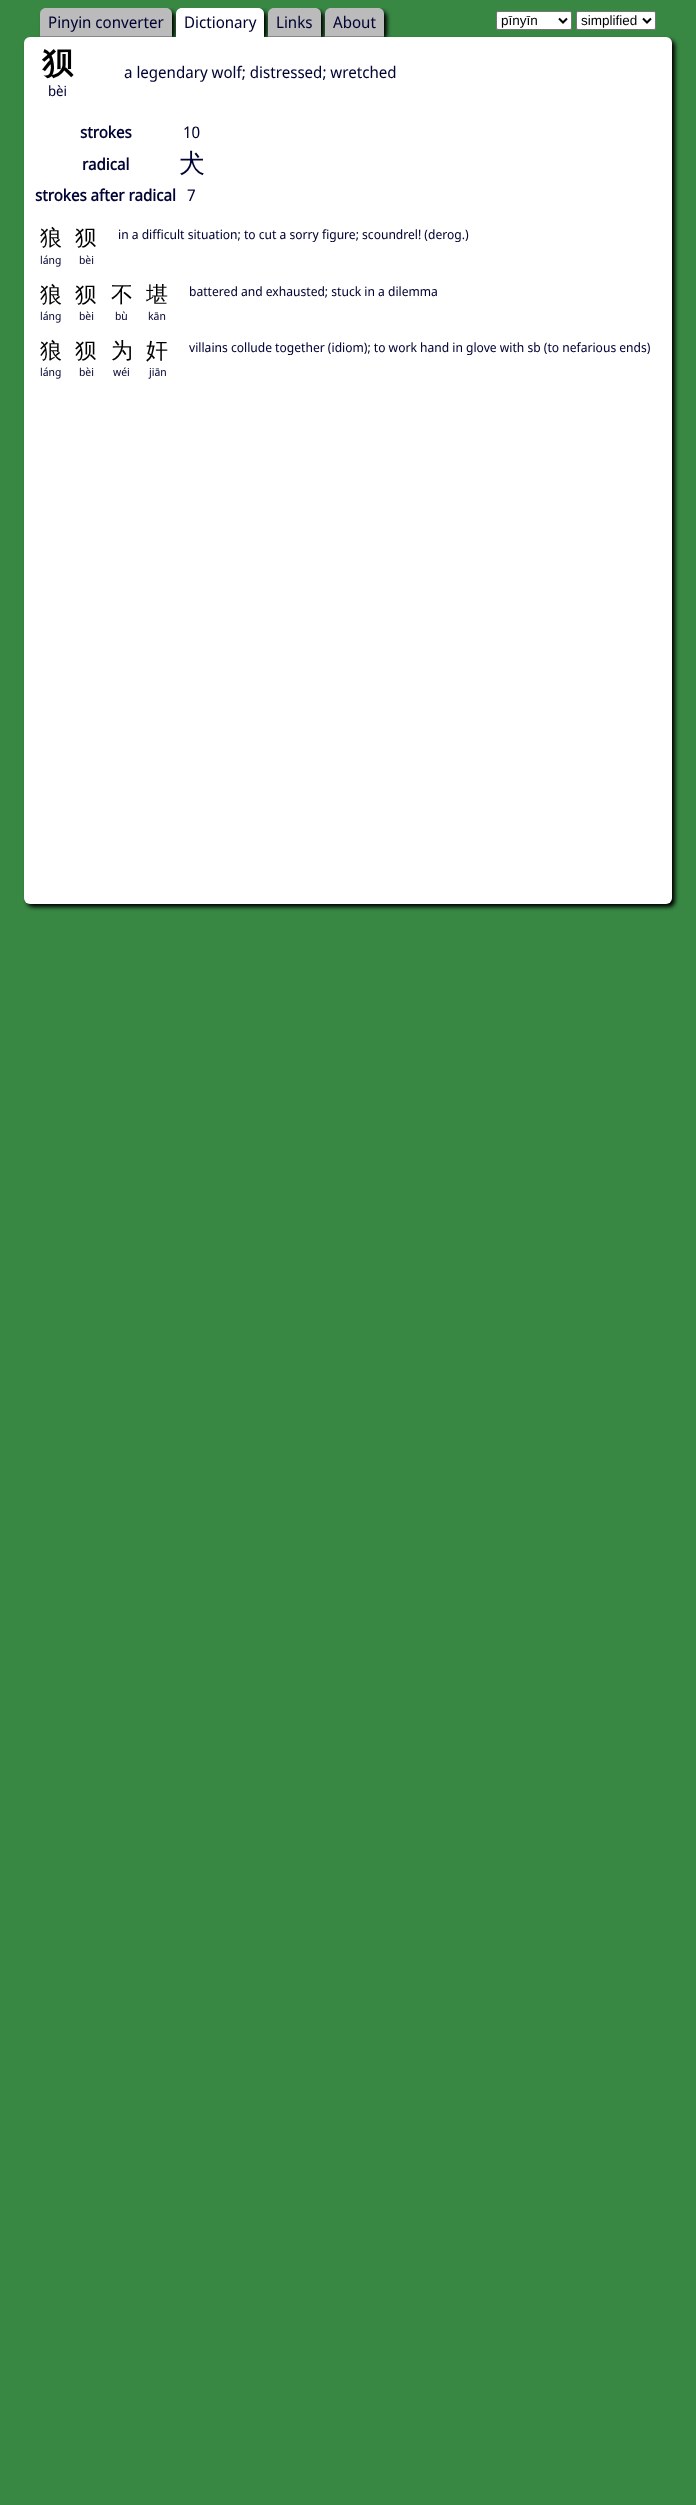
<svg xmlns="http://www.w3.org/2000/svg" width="696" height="2505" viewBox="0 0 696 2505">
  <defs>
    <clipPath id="clip1"><path d="M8 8h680v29H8z"/></clipPath>
  </defs>
  <rect width="100%" height="100%" fill="#388844"/>
  <rect x="27" y="40" width="648" height="867" rx="6" fill="#000" filter="blur(2px)"/>
  <rect x="24" y="37" width="648" height="867" rx="6" fill="#fff"/>
  <g clip-path="url(#clip1)">
    <rect x="43" y="11" width="132" height="29" rx="6" fill="#000" filter="blur(2px)"/>
  </g>
  <path d="M46 8H166C169.5 8 172 10.5 172 14V37H40V14C40 10.5 42.5 8 46 8Z" fill="#bbb"/>
  <path d="M40 36h132v1H40z" fill="#888"/>
  <g clip-path="url(#clip1)">
    <rect x="179" y="11" width="88" height="29" rx="6" fill="#000" filter="blur(2px)"/>
  </g>
  <path d="M182 8H258C261.5 8 264 10.5 264 14V37H176V14C176 10.5 178.5 8 182 8Z" fill="#fff"/>
  <g clip-path="url(#clip1)">
    <rect x="271" y="11" width="53" height="29" rx="6" fill="#000" filter="blur(2px)"/>
  </g>
  <path d="M274 8H315C318.5 8 321 10.5 321 14V37H268V14C268 10.5 270.5 8 274 8Z" fill="#bbb"/>
  <path d="M268 36h53v1H268z" fill="#888"/>
  <g clip-path="url(#clip1)">
    <rect x="328" y="11" width="59" height="29" rx="6" fill="#000" filter="blur(2px)"/>
  </g>
  <path d="M331 8H378C381.5 8 384 10.5 384 14V37H325V14C325 10.5 327.5 8 331 8Z" fill="#bbb"/>
  <path d="M325 36h59v1H325z" fill="#888"/>
  <rect x="496.5" y="11.5" width="75" height="18" rx="1.5" fill="#fff" stroke="#767676"/>
  <path d="M559 18.5L563 22.5L567 18.5" fill="none" stroke="#000" stroke-width="2"/>
  <rect x="576.5" y="11.5" width="79" height="18" rx="1.5" fill="#fff" stroke="#767676"/>
  <path d="M643 18.5L647 22.5L651 18.5" fill="none" stroke="#000" stroke-width="2"/>
  <g font-family="Noto Sans Display" font-size="16" fill="#000333">
    <text x="48" y="28">Pinyin converter</text>
    <text x="184" y="28">Dictionary</text>
    <text x="276" y="28">Links</text>
    <text x="333" y="28">About</text>
  </g>
  <g font-family="Liberation Sans" font-size="13.5" fill="#000">
    <text x="501" y="25">pīnyīn</text>
    <text x="581" y="25">simplified</text>
  </g>
  <text x="42" y="74" font-family="WenQuanYi Zen Hei" font-size="32" font-weight="bold" fill="#000">狈</text>
  <text x="48" y="96" font-family="Noto Sans Display" font-size="14" fill="#000333">bèi</text>
  <text x="124" y="78" font-family="Noto Sans Display" font-size="16" fill="#000333">a legendary wolf; distressed; wretched</text>
  <text x="80" y="138" font-family="Noto Sans Display" font-size="16" font-weight="bold" fill="#000333">strokes</text>
  <text x="183" y="138" font-family="Noto Sans Display" font-size="16" fill="#000333">10</text>
  <text x="82" y="170" font-family="Noto Sans Display" font-size="16" font-weight="bold" fill="#000333">radical</text>
  <text x="179" y="172" font-family="WenQuanYi Zen Hei" font-size="26" font-weight="500" fill="#000333">犬</text>
  <text x="35" y="201" font-family="Noto Sans Display" font-size="16" font-weight="bold" fill="#000333">strokes after radical</text>
  <text x="187" y="201" font-family="Noto Sans Display" font-size="16" fill="#000333">7</text>
  <g font-family="WenQuanYi Zen Hei" font-size="22" font-weight="500" fill="#000">
    <text x="40" y="245">狼</text>
    <text x="75" y="245">狈</text>
  </g>
  <g font-family="Noto Sans Display" font-size="11" fill="#000333">
    <text x="40" y="264">láng</text>
    <text x="79" y="264">bèi</text>
  </g>
  <text x="118" y="239" font-family="Noto Sans Display" font-size="12.8" fill="#000333">in a difficult situation; to cut a sorry figure; scoundrel! (derog.)</text>
  <g font-family="WenQuanYi Zen Hei" font-size="22" font-weight="500" fill="#000">
    <text x="40" y="302">狼</text>
    <text x="75" y="302">狈</text>
    <text x="111" y="302">不</text>
    <text x="146" y="302">堪</text>
  </g>
  <g font-family="Noto Sans Display" font-size="11" fill="#000333">
    <text x="40" y="320">láng</text>
    <text x="79" y="320">bèi</text>
    <text x="115" y="320">bù</text>
    <text x="148" y="320">kān</text>
  </g>
  <text x="189" y="296" font-family="Noto Sans Display" font-size="12.8" fill="#000333">battered and exhausted; stuck in a dilemma</text>
  <g font-family="WenQuanYi Zen Hei" font-size="22" font-weight="500" fill="#000">
    <text x="40" y="358">狼</text>
    <text x="75" y="358">狈</text>
    <text x="111" y="358">为</text>
    <text x="146" y="358">奸</text>
  </g>
  <g font-family="Noto Sans Display" font-size="11" fill="#000333">
    <text x="40" y="376">láng</text>
    <text x="79" y="376">bèi</text>
    <text x="113" y="376">wéi</text>
    <text x="149" y="376">jiān</text>
  </g>
  <text x="189" y="352" font-family="Noto Sans Display" font-size="12.8" fill="#000333">villains collude together (idiom); to work hand in glove with sb (to nefarious ends)</text>
</svg>
